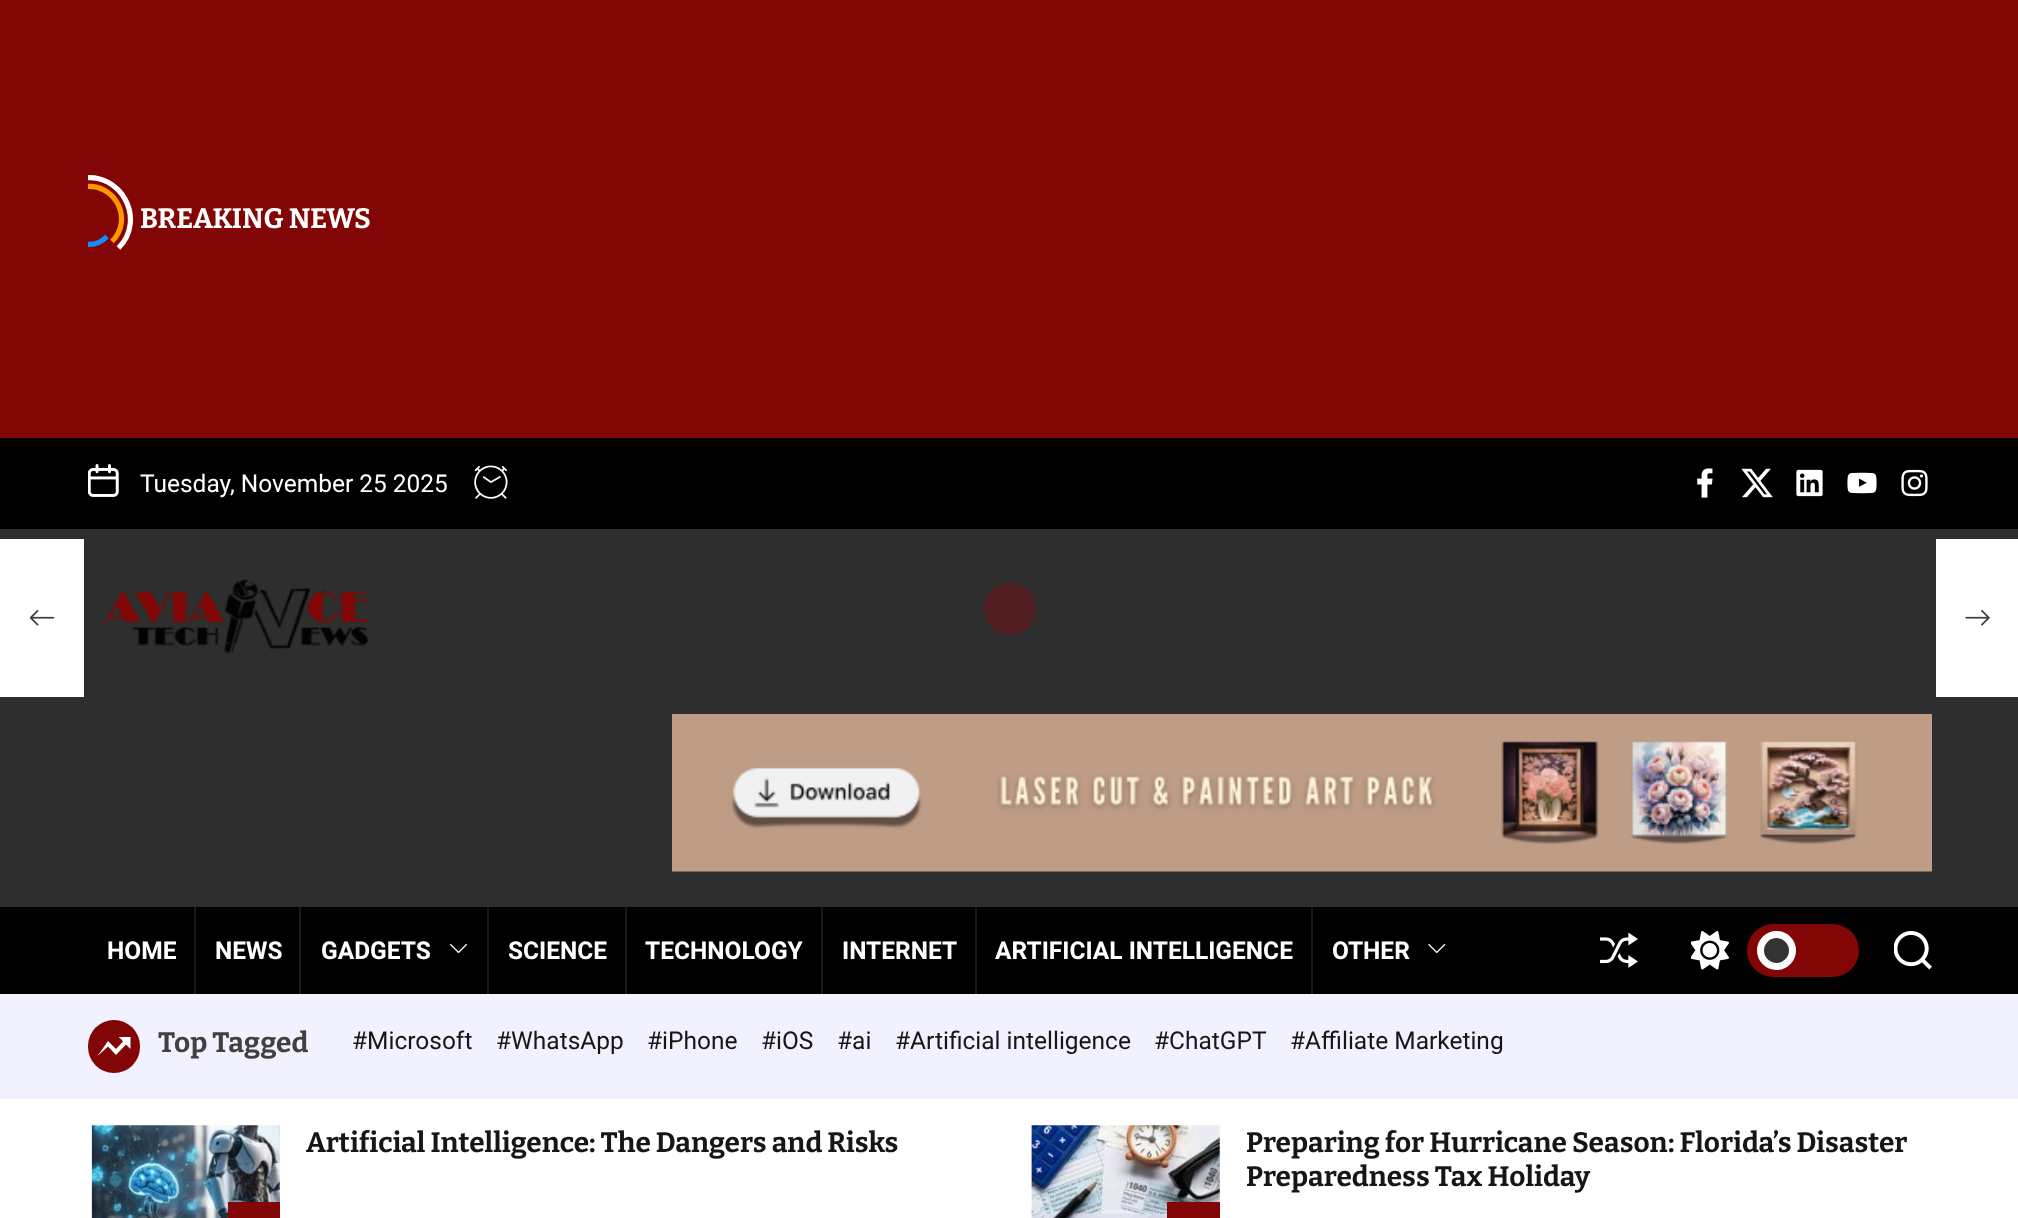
<svg xmlns="http://www.w3.org/2000/svg" width="2018" height="1218" viewBox="0 0 2018 1218">
  <defs>
    <clipPath id="clip1"><path d="M88 175h309v88H88z"/></clipPath>
  </defs>
  <rect width="100%" height="100%" fill="#fff"/>
  <path d="M0 0h2018v438H0z" fill="#830606"/>
  <g clip-path="url(#clip1)">
    <path d="M60 189.5C66 184 73.5 180 81 178.5C120.5 170.5 147 219.5 118.5 248" fill="none" stroke="#fff" stroke-width="5.2"/>
    <path d="M107 236.5C83.5 260.5 47.5 224.5 71.5 201" fill="none" stroke="#148dfe" stroke-width="5.2"/>
    <path d="M66.5 196C71 191.5 76.5 188 83 187C114 181 134.5 219 112 241.5" fill="none" stroke="#ff9800" stroke-width="5.2"/>
  </g>
  <path d="M0 438h2018v91H0z" fill="#000"/>
  <image x="88" y="464" width="31" height="33" href="img/1.png"/>
  <image x="474" y="465" width="34" height="34" href="img/2.png"/>
  <image x="1697" y="468" width="16" height="30" href="img/3.png"/>
  <image x="1741" y="468" width="32" height="30" href="img/4.png"/>
  <image x="1796" y="469" width="27" height="28" href="img/5.png"/>
  <image x="1847" y="472" width="30" height="22" href="img/6.png"/>
  <image x="1901" y="469" width="27" height="28" href="img/7.png"/>
  <path d="M0 529h2018v378H0z" fill="#2e2e2e"/>
  <path d="M0 539h84v158H0z" fill="#fff"/>
  <image x="29" y="609" width="26" height="17" href="img/8.png"/>
  <path d="M1936 539h82v158H1936z" fill="#fff"/>
  <image x="1965" y="609" width="25" height="17" href="img/9.png"/>
  <image x="105" y="579" width="264" height="75" href="img/10.png"/>
  <image x="672" y="714" width="1260" height="158" href="img/11.png"/>
  <path d="M0 907h2018v87H0z" fill="#000"/>
  <path d="M194 907h2v87H194z" fill="#1a1a1a"/>
  <path d="M299 907h2v87H299z" fill="#1a1a1a"/>
  <path d="M487 907h1v87H487z" fill="#1a1a1a"/>
  <path d="M488 907h1v87H488z" fill="#181818"/>
  <image x="450" y="944" width="17" height="9" href="img/12.png"/>
  <path d="M625 907h2v87H625z" fill="#1a1a1a"/>
  <path d="M821 907h2v87H821z" fill="#1a1a1a"/>
  <path d="M975 907h2v87H975z" fill="#1a1a1a"/>
  <path d="M1311 907h2v87H1311z" fill="#1a1a1a"/>
  <image x="1428" y="944" width="18" height="9" href="img/13.png"/>
  <image x="1600" y="932" width="38" height="36" href="img/14.png"/>
  <image x="1691" y="931" width="38" height="39" href="img/15.png"/>
  <rect x="1747" y="924" width="112" height="53" rx="26.5" fill="#830606"/>
  <circle cx="1776.5" cy="950.5" r="16" fill="#333" stroke="#fff" stroke-width="7"/>
  <image x="1894" y="931" width="38" height="39" href="img/16.png"/>
  <path d="M0 994h2018v105H0z" fill="#f1f1ff"/>
  <rect x="88" y="1020" width="52" height="53" rx="26" fill="#830606"/>
  <path d="M121 1039L123 1041.5L116 1049L108 1041L97.5 1056L108 1046.5L116 1055L126 1044.5L130.5 1049V1037H118.5Z" fill="#fff"/>
  <image x="91" y="1125" width="189" height="93" href="img/17.png"/>
  <path d="M228 1202h52v16H228z" fill="#830606"/>
  <image x="1031" y="1125" width="189" height="93" href="img/18.png"/>
  <path d="M1167 1202h53v16H1167z" fill="#830606"/>
  <circle cx="1010" cy="609" r="26" fill="#501e1e"/>
  <text x="140" y="228" font-family="Bitter" font-size="28" font-weight="bold" fill="#fff">BREAKING NEWS</text>
  <text x="140" y="492" font-family="Roboto" font-size="24.5" fill="#fff">Tuesday, November 25 2025</text>
  <g font-family="Roboto" font-size="24.5" font-weight="bold" fill="#fff">
    <text x="107" y="959">HOME</text>
    <text x="215" y="959">NEWS</text>
    <text x="321" y="959">GADGETS</text>
    <text x="508" y="959">SCIENCE</text>
    <text x="645" y="959">TECHNOLOGY</text>
    <text x="842" y="959">INTERNET</text>
    <text x="995" y="959">ARTIFICIAL INTELLIGENCE</text>
    <text x="1332" y="959">OTHER</text>
  </g>
  <text x="158" y="1052" font-family="Bitter" font-size="28" font-weight="bold" fill="#404040">Top Tagged</text>
  <g font-family="Roboto" font-size="24.5" fill="#161616">
    <text x="352" y="1049">#Microsoft</text>
    <text x="496" y="1049">#WhatsApp</text>
    <text x="647" y="1049">#iPhone</text>
    <text x="761" y="1049">#iOS</text>
    <text x="837" y="1049">#ai</text>
    <text x="895" y="1049">#Artificial intelligence</text>
    <text x="1154" y="1049">#ChatGPT</text>
    <text x="1290" y="1049">#Affiliate Marketing</text>
  </g>
  <g font-family="Bitter" font-size="28" font-weight="bold" fill="#161616">
    <text x="306" y="1152">Artificial Intelligence: The Dangers and Risks</text>
    <text x="1246" y="1152">Preparing for Hurricane Season: Florida’s Disaster</text>
    <text x="1246" y="1186">Preparedness Tax Holiday</text>
  </g>
</svg>
